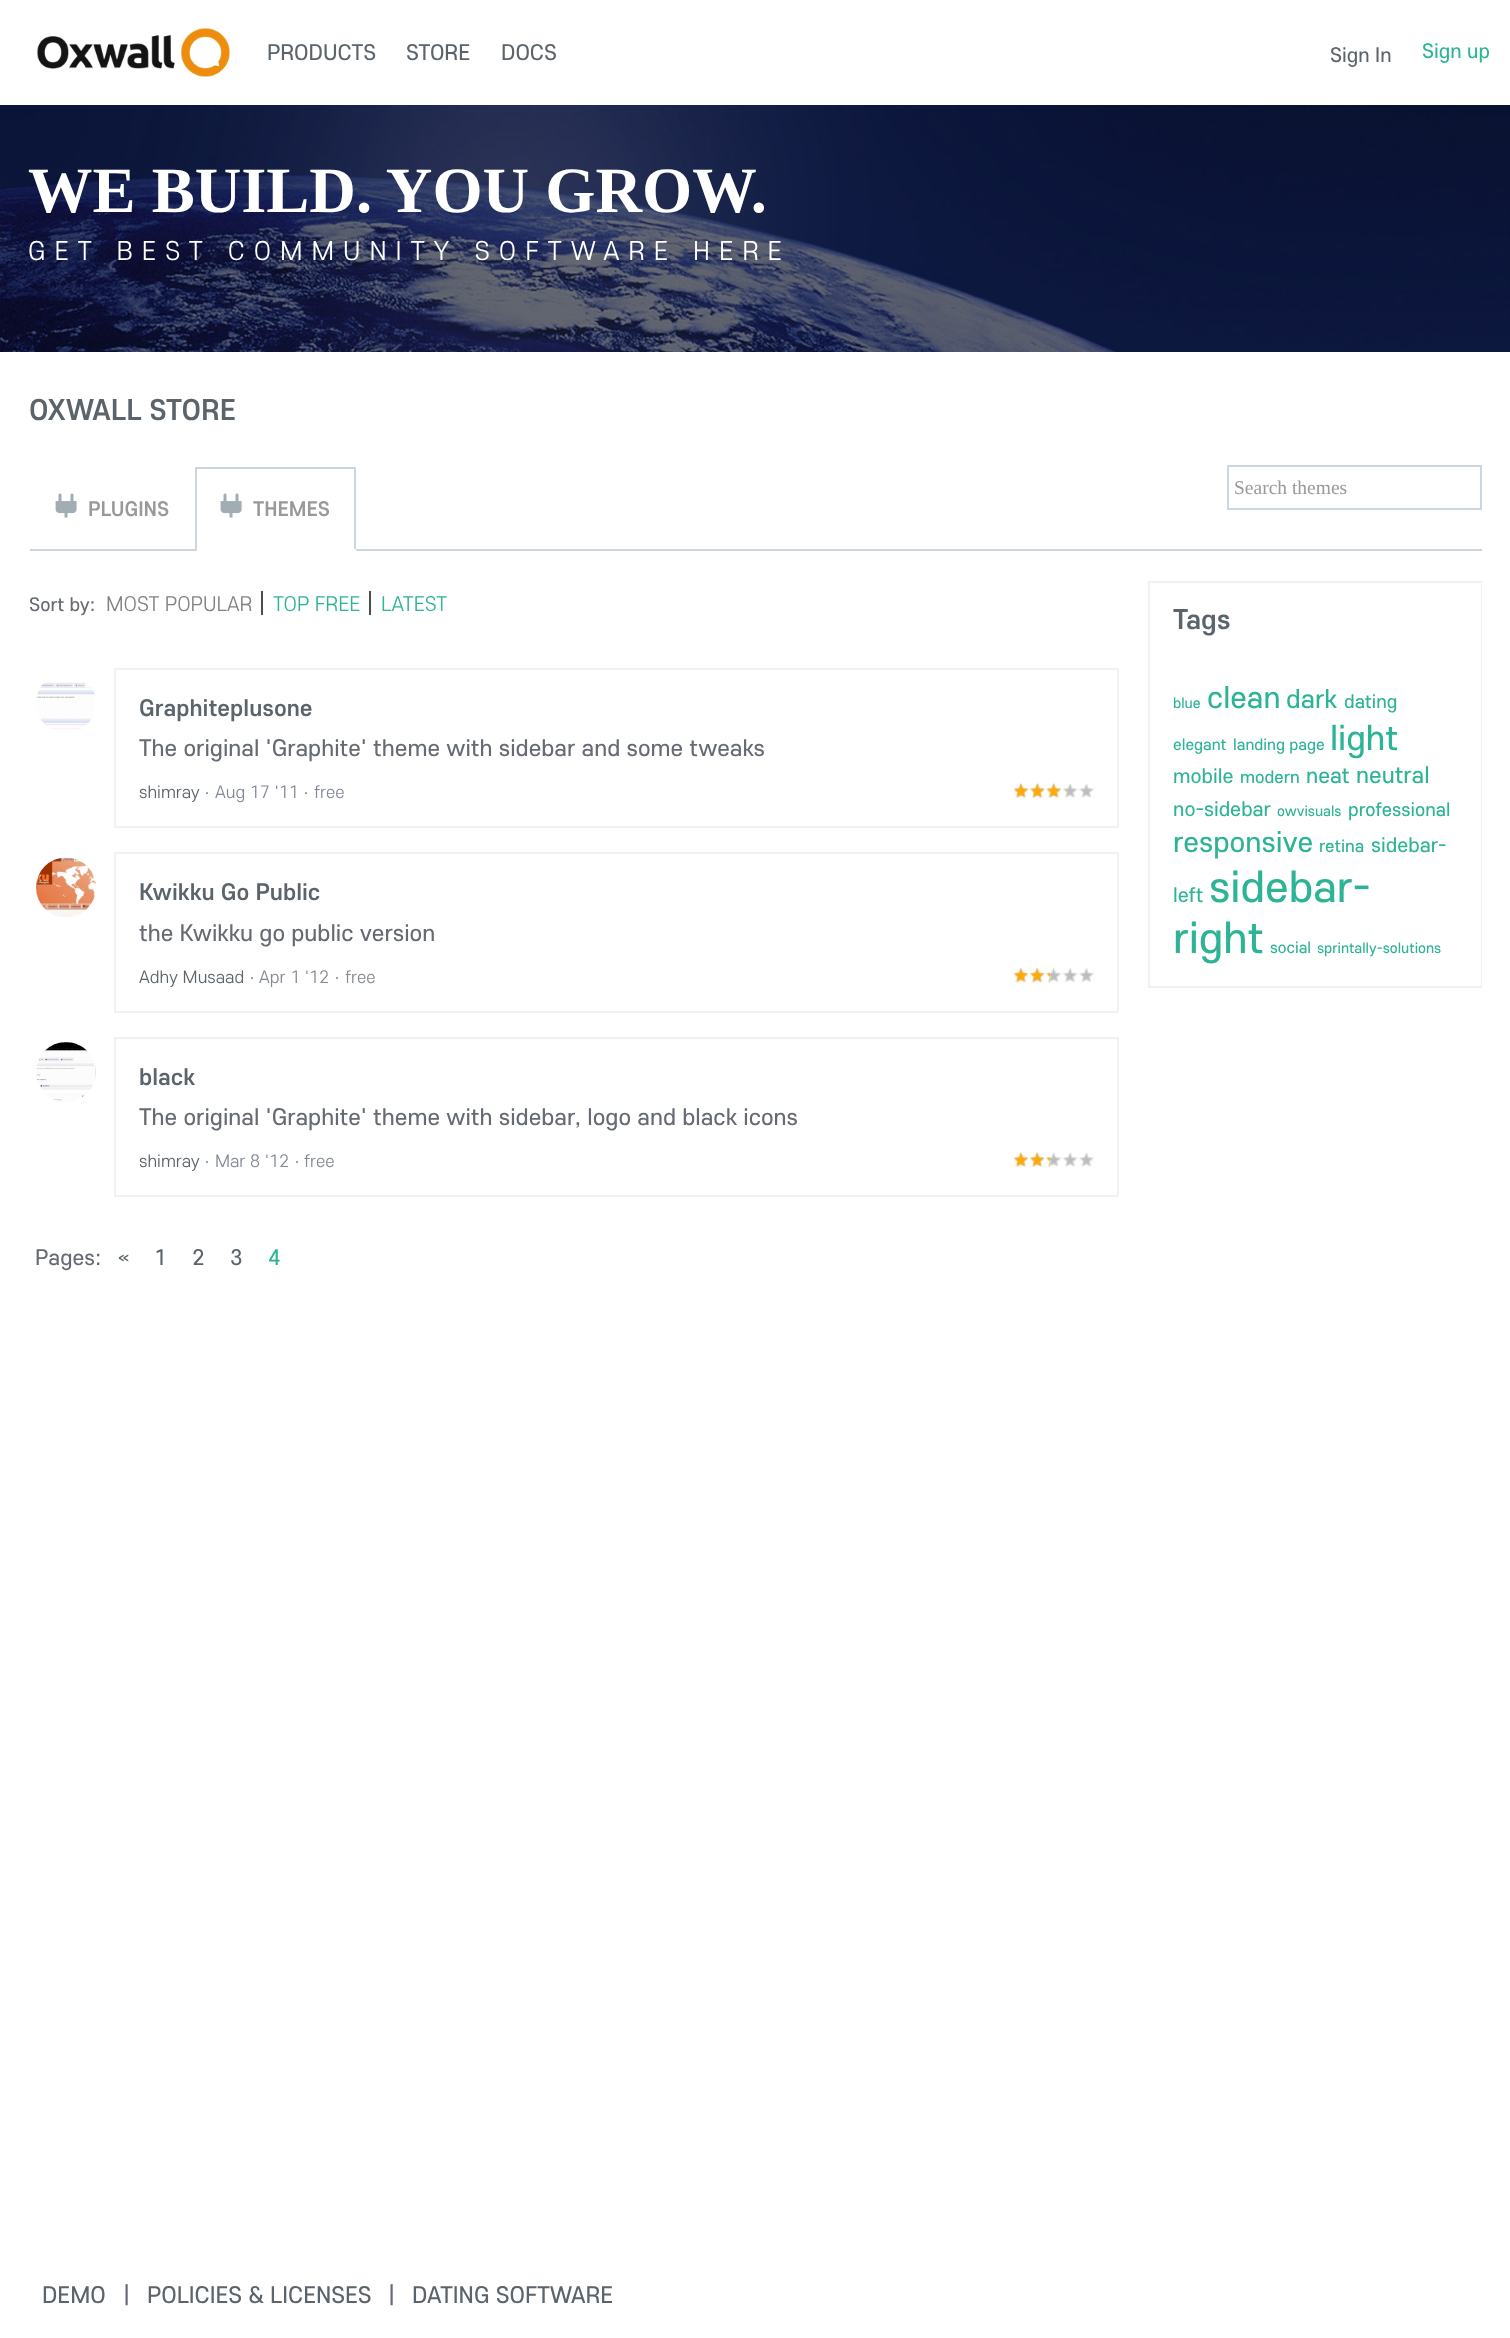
<svg xmlns="http://www.w3.org/2000/svg" width="1510" height="2338" viewBox="0 0 1510 2338">
  <rect width="100%" height="100%" fill="#fff"/>
  <image x="37" y="28" width="193" height="49" href="img/1.png"/>
  <image x="0" y="105" width="1510" height="247" href="img/2.png"/>
  <path d="M1228 466h253v43H1228z" fill="none" stroke="#ccd6de" stroke-width="2"/>
  <path d="M30 549h1452v2H30z" fill="#ccd6de"/>
  <image x="55" y="493" width="22" height="25" href="img/3.png"/>
  <path d="M195 467h161v2H195z" fill="#ccd6de"/>
  <path d="M354 467h2v84H354z" fill="#ccd6de"/>
  <path d="M195 549h161v2H195z" fill="#fff"/>
  <path d="M195 467h2v84H195z" fill="#ccd6de"/>
  <image x="220" y="493" width="22" height="25" href="img/3.png"/>
  <path d="M261 591h2v24H261z" fill="#4c4c4c"/>
  <path d="M369 591h2v24H369z" fill="#4c4c4c"/>
  <image x="36" y="682" width="59" height="51" href="img/4.png"/>
  <path d="M115 669h1003v158H115z" fill="none" stroke="#eff2f5" stroke-width="2"/>
  <image x="1014" y="783" width="80" height="15" href="img/5.png"/>
  <image x="1013" y="782" width="49" height="16" href="img/6.png"/>
  <image x="36" y="857" width="60" height="60" href="img/7.png"/>
  <path d="M115 853h1003v159H115z" fill="none" stroke="#eff2f5" stroke-width="2"/>
  <image x="1014" y="967" width="80" height="16" href="img/8.png"/>
  <image x="1013" y="967" width="37" height="16" href="img/9.png"/>
  <image x="36" y="1042" width="60" height="60" href="img/10.png"/>
  <path d="M115 1038h1003v158H115z" fill="none" stroke="#eff2f5" stroke-width="2"/>
  <image x="1014" y="1152" width="80" height="15" href="img/5.png"/>
  <image x="1013" y="1151" width="37" height="16" href="img/11.png"/>
  <path d="M1148 581h334v2H1148z" fill="#eff2f5"/>
  <path d="M1481 581h1v406H1481z" fill="#eff2f5"/>
  <path d="M1148 581h2v73H1148z" fill="#eff2f5"/>
  <path d="M1148 986h334v2H1148z" fill="#eff2f5"/>
  <path d="M1148 654h2v333H1148z" fill="#eff2f5"/>
  <g font-family="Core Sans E" font-size="22.5" fill="#5b646a">
    <text x="267" y="60">PRODUCTS</text>
    <text x="406" y="60">STORE</text>
    <text x="501" y="60">DOCS</text>
  </g>
  <text x="1330" y="62" font-family="Core Sans E" font-size="21" fill="#5b646a">Sign In</text>
  <text x="1422" y="58" font-family="Core Sans E" font-size="21" fill="#2db395">Sign up</text>
  <text x="28" y="212" font-family="Liberation Serif" font-size="64.5" font-weight="bold" fill="#fff">WE BUILD. YOU GROW.</text>
  <text x="28" y="260" font-family="Core Sans E" font-size="27" font-weight="300" letter-spacing="9" fill="#fff">GET BEST COMMUNITY SOFTWARE HERE</text>
  <text x="29" y="420" font-family="Core Sans E" font-size="30" font-weight="500" fill="#5b646a">OXWALL STORE</text>
  <text x="1234" y="494" font-family="Liberation Serif" font-size="19.5" fill="#999">Search themes</text>
  <g font-family="Core Sans E" font-size="21" font-weight="500" fill="#999">
    <text x="88" y="516">PLUGINS</text>
    <text x="253" y="516">THEMES</text>
  </g>
  <text x="29" y="611" font-family="Core Sans E" font-size="19.5" fill="#666a73">Sort by:</text>
  <text x="106" y="611" font-family="Core Sans E" font-size="21" font-weight="300" fill="#828282">MOST POPULAR</text>
  <g font-family="Core Sans E" font-size="21" font-weight="300" fill="#2db395">
    <text x="273" y="611">TOP FREE</text>
    <text x="381" y="611">LATEST</text>
  </g>
  <text x="139" y="716" font-family="Core Sans E" font-size="24" font-weight="500" fill="#5b646a">Graphiteplusone</text>
  <text x="139" y="756" font-family="Core Sans E" font-size="24" fill="#666a73">The original 'Graphite' theme with sidebar and some tweaks</text>
  <text x="139" y="798" font-family="Core Sans E" font-size="18" font-weight="300" fill="#5b646a">shimray</text>
  <text x="204" y="798" font-family="Liberation Sans" font-size="18" fill="#828894">·</text>
  <text x="215" y="798" font-family="Core Sans E" font-size="18" font-weight="300" fill="#828894">Aug 17 '11</text>
  <text x="303" y="798" font-family="Liberation Sans" font-size="18" fill="#828894">·</text>
  <text x="314" y="798" font-family="Core Sans E" font-size="18" font-weight="300" fill="#828894">free</text>
  <text x="139" y="900" font-family="Core Sans E" font-size="24" font-weight="500" fill="#5b646a">Kwikku Go Public</text>
  <text x="139" y="941" font-family="Core Sans E" font-size="24" fill="#666a73">the Kwikku go public version</text>
  <text x="139" y="983" font-family="Core Sans E" font-size="18" font-weight="300" fill="#5b646a">Adhy Musaad</text>
  <text x="249" y="983" font-family="Liberation Sans" font-size="18" fill="#828894">·</text>
  <text x="259" y="983" font-family="Core Sans E" font-size="18" font-weight="300" fill="#828894">Apr 1 '12</text>
  <text x="334" y="983" font-family="Liberation Sans" font-size="18" fill="#828894">·</text>
  <text x="345" y="983" font-family="Core Sans E" font-size="18" font-weight="300" fill="#828894">free</text>
  <text x="139" y="1085" font-family="Core Sans E" font-size="24" font-weight="500" fill="#5b646a">black</text>
  <text x="139" y="1125" font-family="Core Sans E" font-size="24" fill="#666a73">The original 'Graphite' theme with sidebar, logo and black icons</text>
  <text x="139" y="1167" font-family="Core Sans E" font-size="18" font-weight="300" fill="#5b646a">shimray</text>
  <text x="204" y="1167" font-family="Liberation Sans" font-size="18" fill="#828894">·</text>
  <text x="215" y="1167" font-family="Core Sans E" font-size="18" font-weight="300" fill="#828894">Mar 8 '12</text>
  <text x="294" y="1167" font-family="Liberation Sans" font-size="18" fill="#828894">·</text>
  <text x="304" y="1167" font-family="Core Sans E" font-size="18" font-weight="300" fill="#828894">free</text>
  <text x="35" y="1265" font-family="Core Sans E" font-size="22.5" fill="#666a73">Pages:</text>
  <g font-family="Core Sans E" font-size="22.5" fill="#5b646a">
    <text x="118" y="1265">«</text>
    <text x="154" y="1265">1</text>
    <text x="192" y="1265">2</text>
    <text x="230" y="1265">3</text>
  </g>
  <text x="268" y="1265" font-family="Core Sans E" font-size="22.5" fill="#2db395">4</text>
  <text x="1173" y="629" font-family="Core Sans E" font-size="28.5" font-weight="500" fill="#5b646a">Tags</text>
  <text x="1173" y="708" font-family="Core Sans E" font-size="15" fill="#2db395">blue</text>
  <text x="1207" y="708" font-family="Core Sans E" font-size="31.5" fill="#2db395">clean</text>
  <text x="1286" y="708" font-family="Core Sans E" font-size="27" fill="#2db395">dark</text>
  <text x="1344" y="708" font-family="Core Sans E" font-size="19.5" fill="#2db395">dating</text>
  <g font-family="Core Sans E" font-size="16.5" fill="#2db395">
    <text x="1173" y="750">elegant</text>
    <text x="1233" y="750">landing page</text>
  </g>
  <text x="1330" y="750" font-family="Core Sans E" font-size="36" fill="#2db395">light</text>
  <text x="1173" y="783" font-family="Core Sans E" font-size="21" fill="#2db395">mobile</text>
  <text x="1240" y="783" font-family="Core Sans E" font-size="18" fill="#2db395">modern</text>
  <text x="1306" y="783" font-family="Core Sans E" font-size="22.5" fill="#2db395">neat</text>
  <text x="1356" y="783" font-family="Core Sans E" font-size="24" fill="#2db395">neutral</text>
  <text x="1173" y="816" font-family="Core Sans E" font-size="21" fill="#2db395">no-sidebar</text>
  <text x="1277" y="816" font-family="Core Sans E" font-size="15" fill="#2db395">owvisuals</text>
  <text x="1348" y="816" font-family="Core Sans E" font-size="19.5" fill="#2db395">professional</text>
  <text x="1173" y="852" font-family="Core Sans E" font-size="30" fill="#2db395">responsive</text>
  <text x="1319" y="852" font-family="Core Sans E" font-size="18" fill="#2db395">retina</text>
  <g font-family="Core Sans E" font-size="21" fill="#2db395">
    <text x="1371" y="852">sidebar-</text>
    <text x="1173" y="902">left</text>
  </g>
  <g font-family="Core Sans E" font-size="45" fill="#2db395">
    <text x="1209" y="902">sidebar-</text>
    <text x="1173" y="953">right</text>
  </g>
  <text x="1270" y="953" font-family="Core Sans E" font-size="16.5" fill="#2db395">social</text>
  <text x="1317" y="953" font-family="Core Sans E" font-size="15" fill="#2db395">sprintally-solutions</text>
  <text x="42" y="2303" font-family="Core Sans E" font-size="24" fill="#5b646a">DEMO</text>
  <text x="123" y="2303" font-family="Core Sans E" font-size="24" fill="#666a73">|</text>
  <text x="147" y="2303" font-family="Core Sans E" font-size="24" fill="#5b646a">POLICIES &amp; LICENSES</text>
  <text x="388" y="2303" font-family="Core Sans E" font-size="24" fill="#666a73">|</text>
  <text x="412" y="2303" font-family="Core Sans E" font-size="24" fill="#5b646a">DATING SOFTWARE</text>
</svg>
